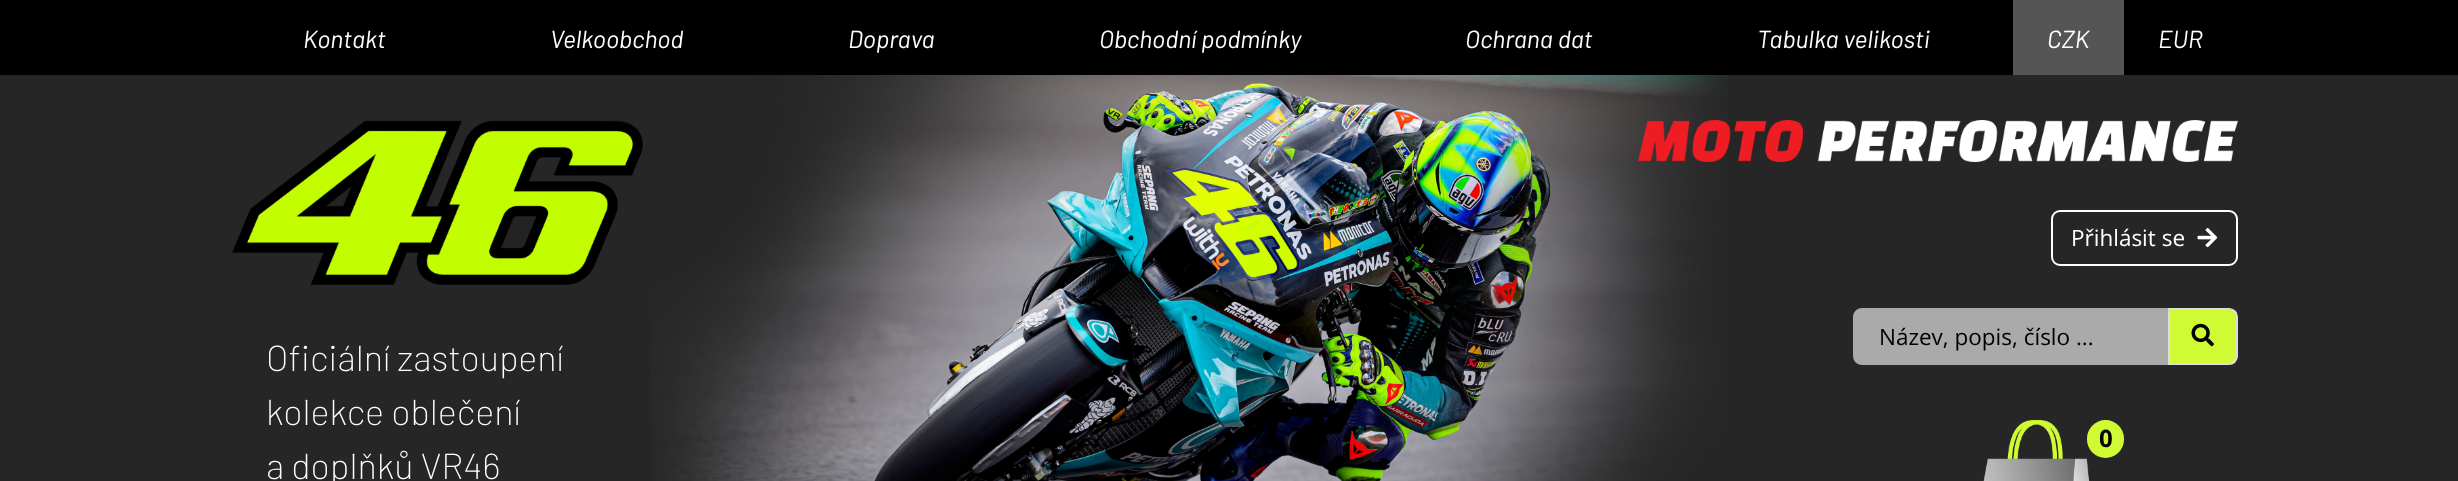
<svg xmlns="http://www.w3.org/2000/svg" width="2458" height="481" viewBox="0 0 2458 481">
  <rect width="100%" height="100%" fill="#262626"/>
  <path d="M0 0h2458v75H0z" fill="#000"/>
  <path d="M2013 0h111v75H2013z" fill="#555"/>
  <image x="651" y="75" width="1077" height="406" href="img/1.png"/>
  <image x="232" y="120" width="411" height="165" href="img/2.png"/>
  <image x="1638" y="120" width="600" height="42" href="img/3.png"/>
  <rect x="2052" y="211" width="185" height="54" rx="8" fill="none" stroke="#fff" stroke-width="2"/>
  <image x="2197" y="228" width="21" height="20" href="img/4.png"/>
  <path d="M1862 308H2168V365H1862C1857 365 1853 361 1853 356V317C1853 312 1857 308 1862 308Z" fill="#aaa"/>
  <path d="M2169 309H2229C2233.5 309 2237 312.5 2237 317V356C2237 360.5 2233.5 364 2229 364H2169Z" fill="#d0fa34" stroke="#ddd" stroke-width="2"/>
  <image x="2191" y="323" width="23" height="24" href="img/5.png"/>
  <image x="1983" y="420" width="107" height="61" href="img/6.png"/>
  <rect x="2087" y="420" width="37" height="38" rx="18.5" fill="#d0fa34"/>
  <g font-family="Barlow" font-size="24.75" font-style="italic" fill="#fff">
    <text x="303" y="48">Kontakt</text>
    <text x="550" y="48">Velkoobchod</text>
    <text x="848" y="48">Doprava</text>
    <text x="1099" y="48">Obchodní podmínky</text>
    <text x="1465" y="48">Ochrana dat</text>
    <text x="1757" y="48">Tabulka velikosti</text>
    <text x="2047" y="48">CZK</text>
    <text x="2158" y="48">EUR</text>
  </g>
  <text x="2071" y="246" font-family="Open Sans" font-size="22.5" fill="#fff">Přihlásit se</text>
  <text x="1879" y="345" font-family="Open Sans" font-size="22.5" fill="#000">Název, popis, číslo ...</text>
  <g font-family="Barlow" font-size="36" font-weight="200" fill="#fff">
    <text x="266" y="371">Oficiální zastoupení</text>
    <text x="266" y="425">kolekce oblečení</text>
    <text x="266" y="479">a doplňků VR46</text>
  </g>
  <text x="2099" y="447" font-family="Open Sans" font-size="24" font-weight="bold" fill="#000">0</text>
</svg>
